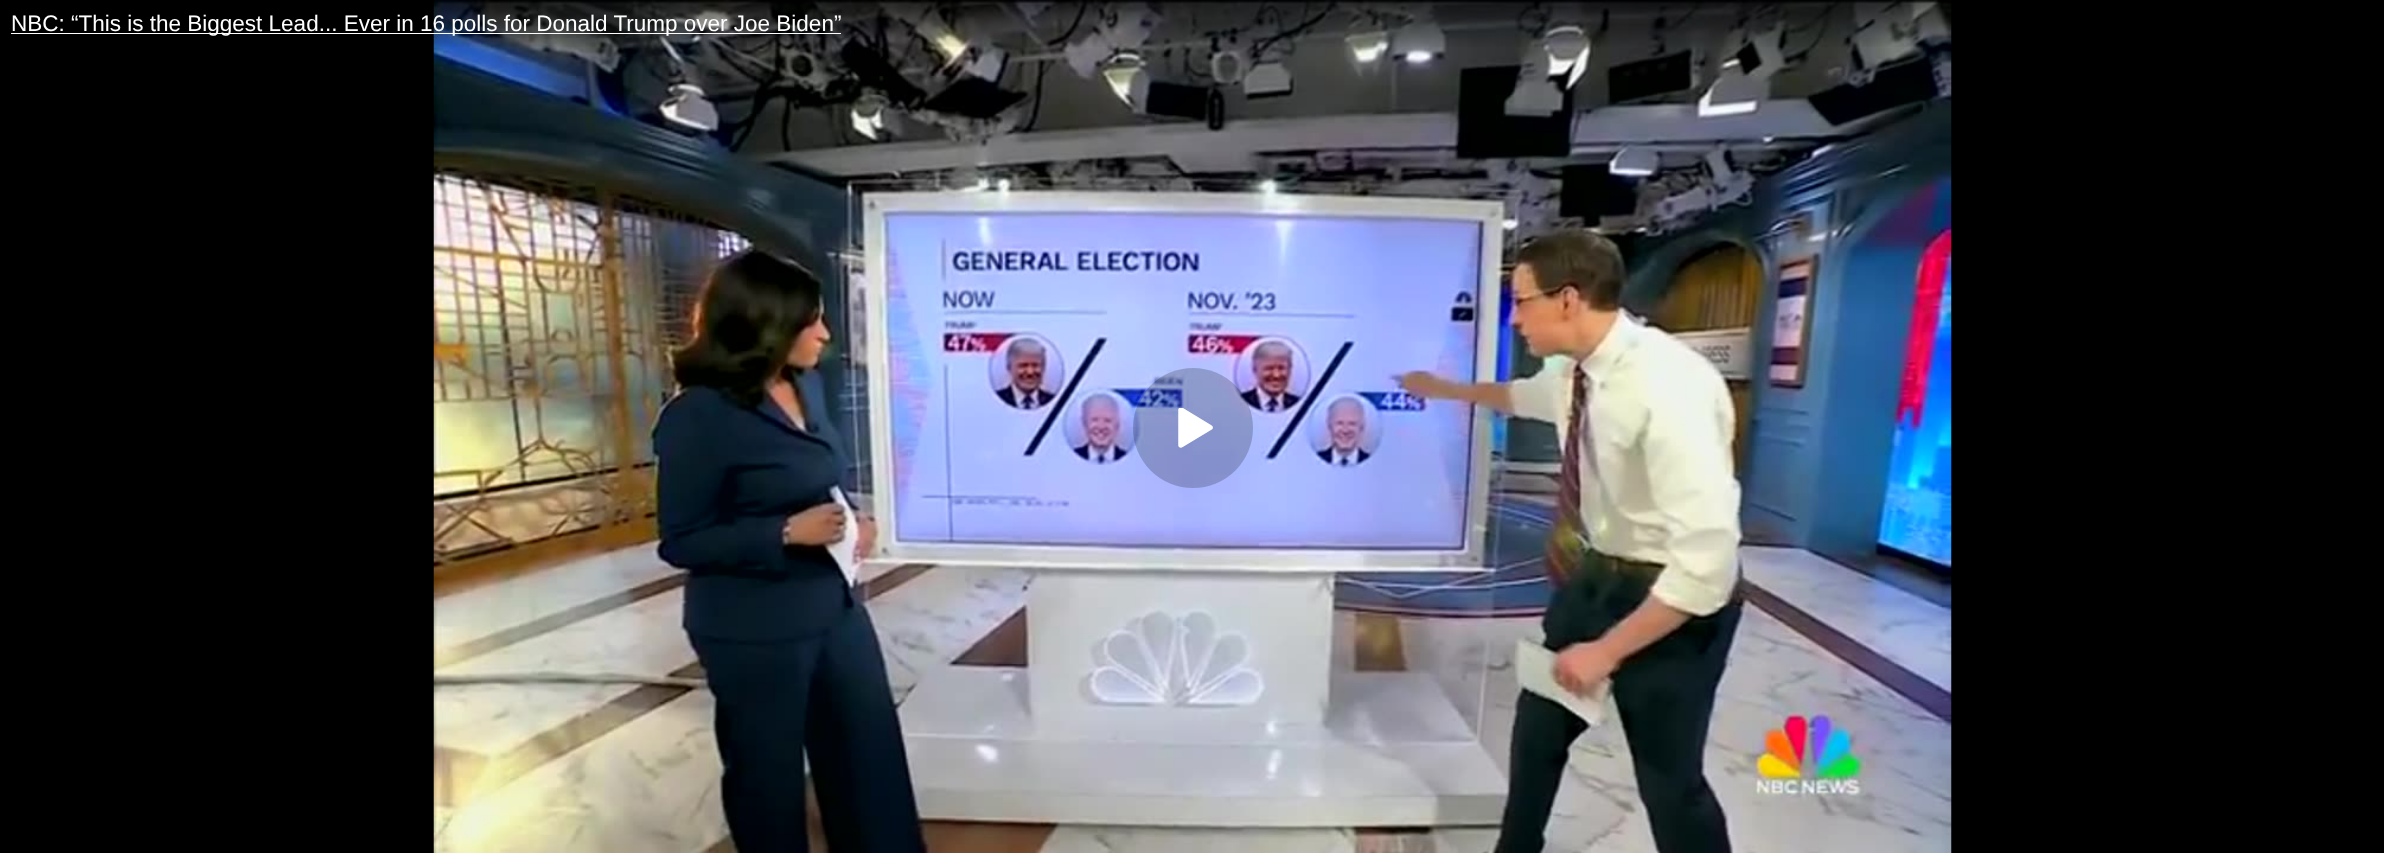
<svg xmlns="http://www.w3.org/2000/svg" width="2384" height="853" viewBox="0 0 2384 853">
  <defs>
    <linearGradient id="g1" gradientUnits="userSpaceOnUse" x1="1193" y1="0" x2="1193" y2="49"><stop offset="0" stop-color="#000" stop-opacity="0.7"/><stop offset="1" stop-color="#000" stop-opacity="0"/></linearGradient>
    <clipPath id="clip1"><path d="M1173 408h40v40H1173z"/></clipPath>
  </defs>
  <rect width="100%" height="100%" fill="#000"/>
  <image x="433" y="0" width="1519" height="853" href="img/1.png"/>
  <path d="M433 0h1519v47H433z" fill="url(#g1)"/>
  <path d="M11 33h830v1H11z" fill="#fff"/>
  <circle cx="1193" cy="428" r="60" fill="#00000033"/>
  <path d="M1210 427.5L1181 410V445Z" fill="#fff"/>
  <g clip-path="url(#clip1)">
    <path d="M1210 427.5L1181 410V445Z" fill="none" stroke="#fff" stroke-width="5.5" stroke-linejoin="round"/>
  </g>
  <text x="11" y="31" font-family="Liberation Sans" font-size="22.5" fill="#fff">NBC: “This is the Biggest Lead... Ever in 16 polls for Donald Trump over Joe Biden”</text>
</svg>
